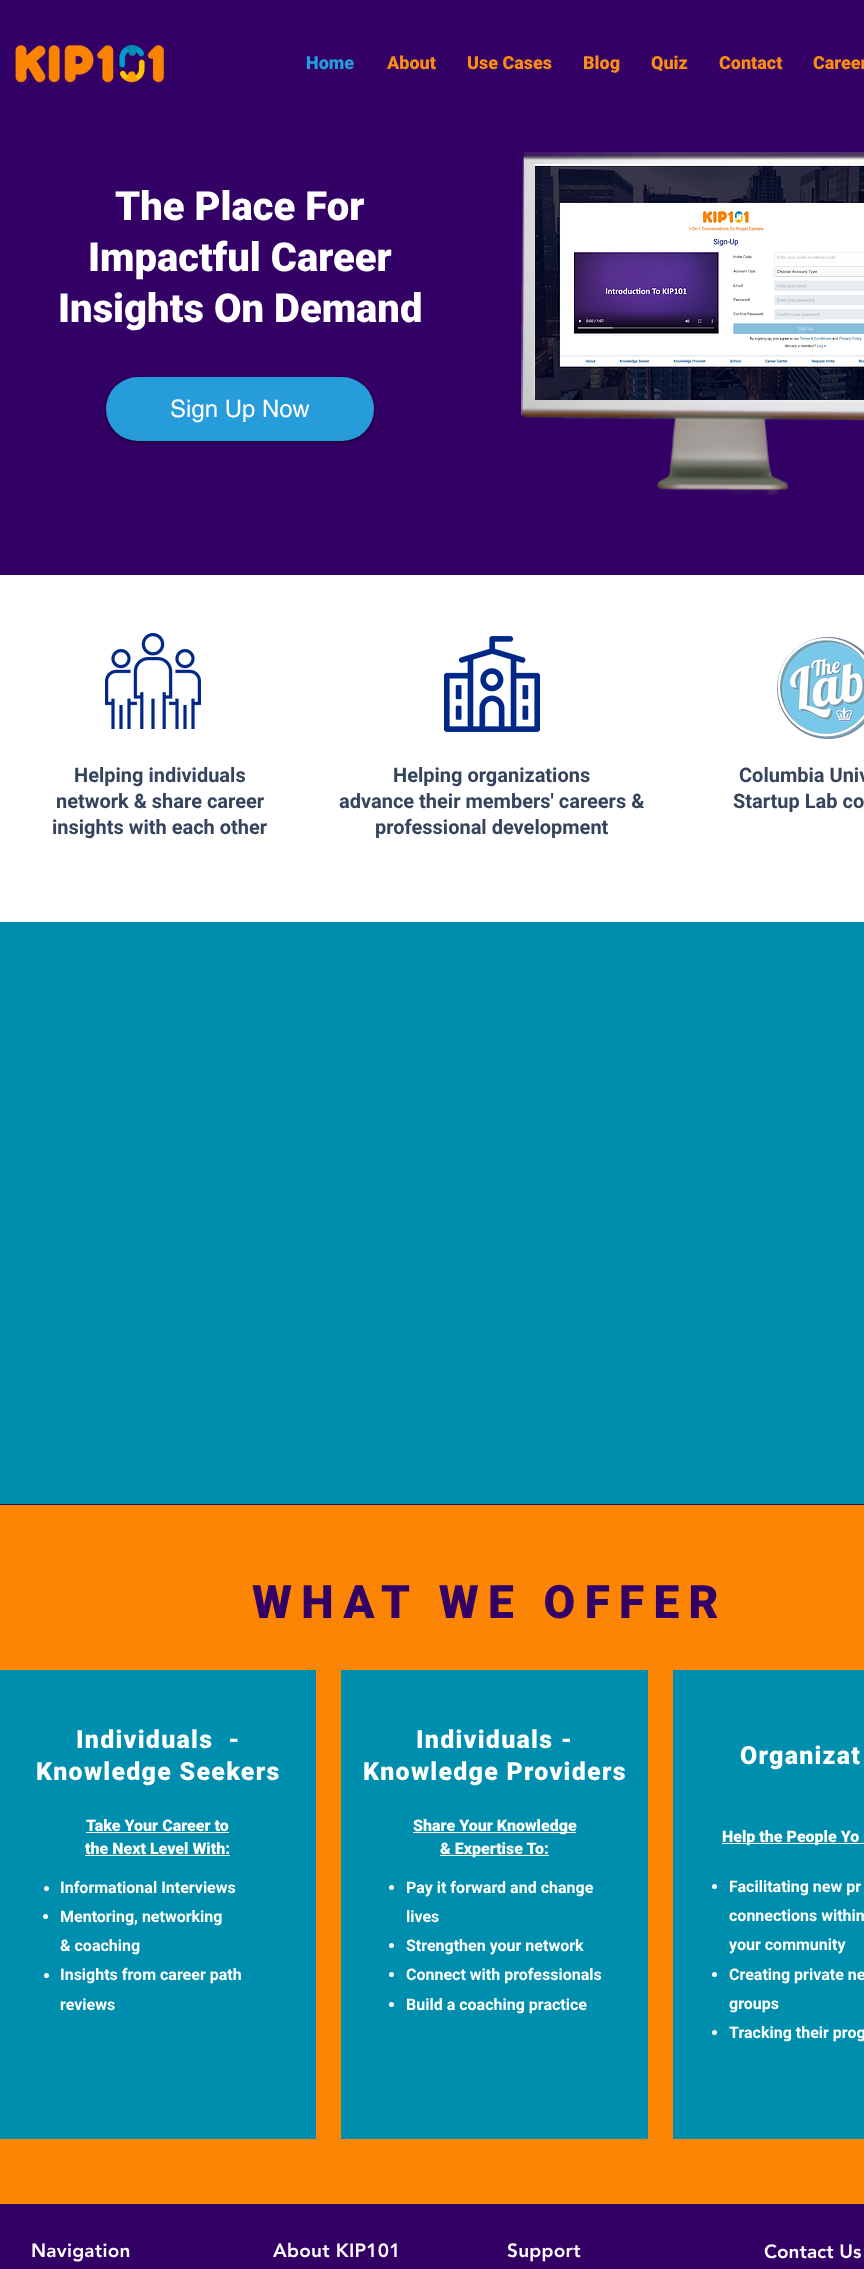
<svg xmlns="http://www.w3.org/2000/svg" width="864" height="2269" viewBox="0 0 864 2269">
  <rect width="100%" height="100%" fill="#306"/>
  <image x="15" y="44" width="149" height="39" href="img/1.png"/>
  <image x="521" y="152" width="343" height="343" href="img/2.png"/>
  <image x="535" y="164" width="329" height="236" href="img/3.png"/>
  <rect x="106" y="378" width="268" height="64" rx="32" fill="#00000099" filter="blur(2px)"/>
  <rect x="106" y="377" width="268" height="64" rx="32" fill="#279cdb"/>
  <path d="M0 575h864v347H0z" fill="#fff"/>
  <image x="105" y="633" width="96" height="96" href="img/4.png"/>
  <image x="444" y="636" width="96" height="96" href="img/5.png"/>
  <image x="777" y="637" width="87" height="102" href="img/6.png"/>
  <path d="M0 922h864v582H0z" fill="#008eae"/>
  <path d="M0 1505h864v699H0z" fill="#fc8503"/>
  <path d="M0 1670h316v469H0z" fill="#008eae"/>
  <path d="M86 1832h143v1H86z" fill="#fff"/>
  <path d="M85 1855h145v1H85z" fill="#fff"/>
  <circle cx="46.5" cy="1888.5" r="2.5" fill="#fff"/>
  <circle cx="45.5" cy="1916.5" r="2.5" fill="#fff"/>
  <circle cx="46.5" cy="1975.5" r="2.5" fill="#fff"/>
  <path d="M341 1670h307v469H341z" fill="#008eae"/>
  <path d="M413 1832h163v1H413z" fill="#fff"/>
  <path d="M440 1855h109v1H440z" fill="#fff"/>
  <circle cx="391.5" cy="1887.5" r="2.5" fill="#fff"/>
  <circle cx="391.5" cy="1945.5" r="2.5" fill="#fff"/>
  <circle cx="391.5" cy="1974.5" r="2.5" fill="#fff"/>
  <circle cx="391.5" cy="2004.5" r="2.5" fill="#fff"/>
  <path d="M673 1670h191v469H673z" fill="#008eae"/>
  <circle cx="714.5" cy="1886.5" r="2.5" fill="#fff"/>
  <circle cx="714.5" cy="1974.5" r="2.5" fill="#fff"/>
  <circle cx="714.5" cy="2032.5" r="2.5" fill="#fff"/>
  <path d="M722 1843h142v1H722z" fill="#fff"/>
  <text x="306" y="69" font-family="Roboto" font-size="18" font-weight="900" fill="#279cdb">Home</text>
  <g font-family="Roboto" font-size="18" font-weight="900" fill="#f78d14">
    <text x="387" y="69">About</text>
    <text x="467" y="69">Use Cases</text>
    <text x="583" y="69">Blog</text>
    <text x="651" y="69">Quiz</text>
    <text x="719" y="69">Contact</text>
    <text x="813" y="69">Career</text>
  </g>
  <g font-family="Roboto" font-size="40" font-weight="900" fill="#fff">
    <text x="115" y="220">The Place For</text>
    <text x="88" y="271">Impactful Career</text>
    <text x="58" y="322">Insights On Demand</text>
  </g>
  <text x="170" y="417" font-family="helvetica" font-size="24" fill="#fff">Sign Up Now</text>
  <g font-family="Roboto" font-size="20" font-weight="bold" fill="#35435d">
    <text x="74" y="782">Helping individuals</text>
    <text x="56" y="808">network &amp; share career</text>
    <text x="52" y="834">insights with each other</text>
    <text x="393" y="782">Helping organizations</text>
    <text x="339" y="808">advance their members' careers &amp;</text>
    <text x="375" y="834">professional development</text>
    <text x="739" y="782">Columbia Univ</text>
    <text x="733" y="808">Startup Lab co</text>
  </g>
  <text x="252" y="1618" font-family="Roboto" font-size="46" font-weight="900" letter-spacing="9.25" fill="#306">WHAT WE OFFER</text>
  <g font-family="Roboto" font-size="25" font-weight="900" letter-spacing="1.25" fill="#fff">
    <text x="76" y="1748" xml:space="preserve">Individuals  -</text>
    <text x="36" y="1780">Knowledge Seekers</text>
  </g>
  <g font-family="Roboto" font-size="16" font-weight="900" fill="#fff">
    <text x="86" y="1831">Take Your Career to</text>
    <text x="85" y="1854">the Next Level With:</text>
  </g>
  <g font-family="Roboto" font-size="16" font-weight="bold" fill="#fff">
    <text x="60" y="1893">Informational Interviews</text>
    <text x="60" y="1922">Mentoring, networking</text>
    <text x="60" y="1951">&amp; coaching</text>
    <text x="60" y="1980">Insights from career path</text>
    <text x="60" y="2010">reviews</text>
  </g>
  <g font-family="Roboto" font-size="25" font-weight="900" letter-spacing="1.25" fill="#fff">
    <text x="416" y="1748">Individuals -</text>
    <text x="363" y="1780">Knowledge Providers</text>
  </g>
  <g font-family="Roboto" font-size="16" font-weight="900" fill="#fff">
    <text x="413" y="1831">Share Your Knowledge</text>
    <text x="440" y="1854">&amp; Expertise To:</text>
  </g>
  <g font-family="Roboto" font-size="16" font-weight="bold" fill="#fff">
    <text x="406" y="1893">Pay it forward and change</text>
    <text x="406" y="1922">lives</text>
    <text x="406" y="1951">Strengthen your network</text>
    <text x="406" y="1980">Connect with professionals</text>
    <text x="406" y="2010">Build a coaching practice</text>
  </g>
  <text x="740" y="1764" font-family="Roboto" font-size="25" font-weight="900" letter-spacing="1.25" fill="#fff">Organizat</text>
  <g font-family="Roboto" font-size="16" font-weight="bold" fill="#fff">
    <text x="729" y="1892">Facilitating new pr</text>
    <text x="729" y="1921">connections within</text>
    <text x="729" y="1950">your community</text>
    <text x="729" y="1980">Creating private ne</text>
    <text x="729" y="2009">groups</text>
    <text x="729" y="2038">Tracking their prog</text>
  </g>
  <text x="722" y="1842" font-family="Roboto" font-size="16" font-weight="900" fill="#fff">Help the People Yo</text>
  <g font-family="'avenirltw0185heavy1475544'" font-size="19" font-weight="900" letter-spacing="0.25" fill="#fff">
    <text x="31" y="2257">Navigation</text>
    <text x="273" y="2257">About KIP101</text>
    <text x="507" y="2257">Support</text>
  </g>
  <text x="764" y="2258" font-family="'avenirltw0185heavy1475544'" font-size="19" font-weight="900" fill="#fff">Contact Us</text>
</svg>
